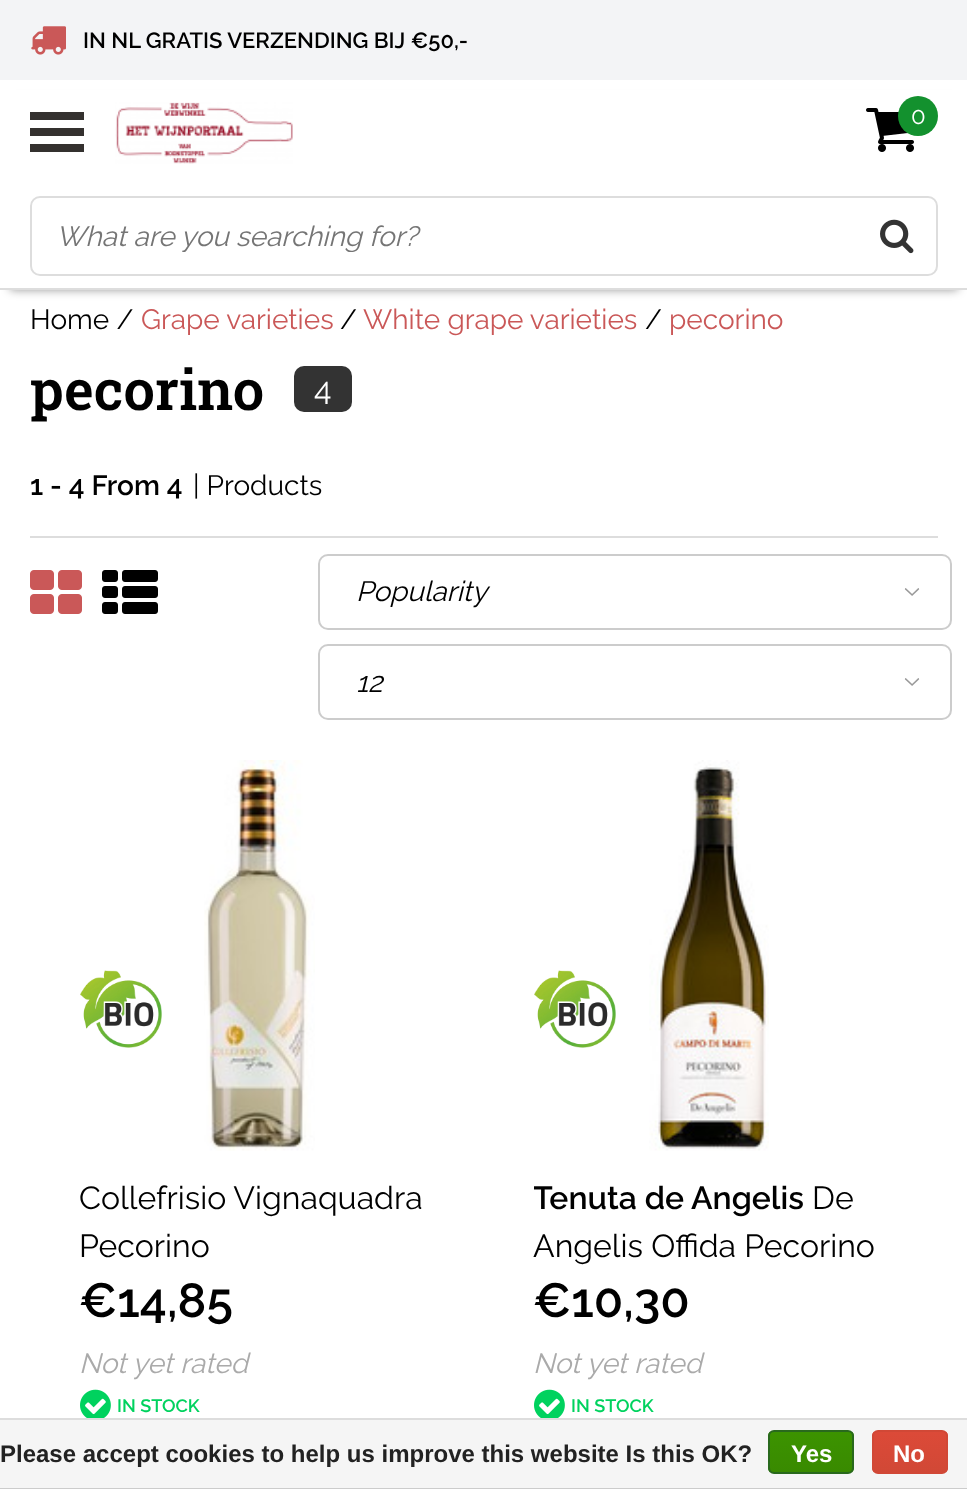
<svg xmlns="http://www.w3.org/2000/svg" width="967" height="1489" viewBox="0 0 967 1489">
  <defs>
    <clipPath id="clip1"><rect x="768" y="1430" width="86" height="44" rx="6"/></clipPath>
    <linearGradient id="g1" gradientUnits="userSpaceOnUse" x1="811" y1="1432" x2="811" y2="1472"><stop offset="0" stop-color="#3c9300"/><stop offset="1" stop-color="#398a00"/></linearGradient>
    <clipPath id="clip2"><rect x="872" y="1430" width="76" height="44" rx="6"/></clipPath>
    <linearGradient id="g2" gradientUnits="userSpaceOnUse" x1="910" y1="1432" x2="910" y2="1472"><stop offset="0" stop-color="#dc4a38"/><stop offset="1" stop-color="#d14836"/></linearGradient>
    <clipPath id="clip3"><path d="M56 220h796v32H56z"/></clipPath>
    <clipPath id="clip4"><path d="M534 1176h356v96H534z"/></clipPath>
  </defs>
  <rect width="100%" height="100%" fill="#fff"/>
  <path d="M0 0h967v80H0z" fill="#f3f4f6"/>
  <image x="31" y="26" width="35" height="29" href="img/1.png"/>
  <path d="M10 100h948v190H10z" fill="#00000066" filter="blur(5px)"/>
  <path d="M0 90h967v198H0z" fill="#fff"/>
  <path d="M0 288h967v2H0z" fill="#ddd"/>
  <path d="M30 112h54v8H30z" fill="#34312f"/>
  <path d="M30 128h54v8H30z" fill="#34312f"/>
  <path d="M30 144h54v8H30z" fill="#34312f"/>
  <image x="115" y="102" width="178" height="62" href="img/2.png"/>
  <image x="866" y="108" width="48" height="44" href="img/3.png"/>
  <circle cx="918" cy="116" r="20" fill="#13912e"/>
  <rect x="31" y="197" width="906" height="78" rx="9" fill="none" stroke="#ddd" stroke-width="2"/>
  <image x="880" y="219" width="34" height="35" href="img/4.png"/>
  <rect x="294" y="366" width="58" height="46" rx="10" fill="#333"/>
  <path d="M30 536h908v2H30z" fill="#ddd"/>
  <image x="30" y="570" width="52" height="44" href="img/5.png"/>
  <image x="102" y="570" width="56" height="44" href="img/6.png"/>
  <image x="904" y="588" width="16" height="8" href="img/7.png"/>
  <rect x="319" y="555" width="632" height="74" rx="9" fill="none" stroke="#ccc" stroke-width="2"/>
  <image x="904" y="678" width="16" height="8" href="img/7.png"/>
  <rect x="319" y="645" width="632" height="74" rx="9" fill="none" stroke="#ccc" stroke-width="2"/>
  <image x="80" y="970" width="82" height="78" href="img/8.png"/>
  <image x="204" y="760" width="111" height="391" href="img/9.png"/>
  <image x="80" y="1389" width="31" height="29" href="img/10.png"/>
  <image x="534" y="970" width="82" height="78" href="img/8.png"/>
  <image x="649" y="760" width="120" height="391" href="img/11.png"/>
  <image x="534" y="1389" width="31" height="29" href="img/10.png"/>
  <path d="M0 1420h967v68H0z" fill="#f5f5f5"/>
  <path d="M0 1418h967v2H0z" fill="#ddd"/>
  <path d="M0 1488h967v1H0z" fill="#ccc"/>
  <g clip-path="url(#clip1)">
    <path d="M768 1432h86v40H768z" fill="url(#g1)"/>
  </g>
  <rect x="769" y="1431" width="84" height="42" rx="5" fill="none" stroke="#29691d" stroke-width="2"/>
  <g clip-path="url(#clip2)">
    <path d="M872 1432h76v40H872z" fill="url(#g2)"/>
  </g>
  <rect x="873" y="1431" width="74" height="42" rx="5" fill="none" stroke="#d14836" stroke-width="2"/>
  <text x="83" y="48" font-family="Raleway" font-size="22" font-weight="600" fill="#000">IN NL GRATIS VERZENDING BIJ €50,-</text>
  <text x="911" y="124" font-family="Raleway" font-size="24" fill="#fff">0</text>
  <g clip-path="url(#clip3)">
    <text x="56" y="246" font-family="Raleway" font-size="28" font-style="italic" fill="#757575">What are you searching for?</text>
  </g>
  <text x="30" y="329" font-family="Raleway" font-size="28" fill="#000">Home /</text>
  <text x="141" y="329" font-family="Raleway" font-size="28" fill="#ca5858">Grape varieties</text>
  <text x="340" y="329" font-family="Raleway" font-size="28" fill="#000">/</text>
  <text x="363" y="329" font-family="Raleway" font-size="28" fill="#ca5858">White grape varieties</text>
  <text x="645" y="329" font-family="Raleway" font-size="28" fill="#000">/</text>
  <text x="669" y="329" font-family="Raleway" font-size="28" fill="#ca5858">pecorino</text>
  <text x="30" y="410" font-family="Roboto Slab" font-size="56" font-weight="600" fill="#000">pecorino</text>
  <text x="314" y="400" font-family="Raleway" font-size="32" fill="#fff">4</text>
  <text x="30" y="495" font-family="Raleway" font-size="28" font-weight="600" fill="#000">1 - 4 From 4</text>
  <text x="193" y="495" font-family="Raleway" font-size="28" fill="#000">| Products</text>
  <g font-family="Raleway" font-size="28" font-style="italic" fill="#000">
    <text x="356" y="601">Popularity</text>
    <text x="356" y="692">12</text>
  </g>
  <g font-family="Raleway" font-size="32" fill="#000">
    <text x="79" y="1209">Collefrisio Vignaquadra</text>
    <text x="79" y="1257">Pecorino</text>
  </g>
  <text x="79" y="1317" font-family="Raleway" font-size="48" font-weight="600" fill="#000">€14,85</text>
  <text x="79" y="1373" font-family="Raleway" font-size="28" font-style="italic" fill="#aaa">Not yet rated</text>
  <text x="117" y="1412" font-family="Raleway" font-size="18" font-weight="600" fill="#00d25e">IN STOCK</text>
  <g clip-path="url(#clip4)">
    <text x="533" y="1209" font-family="Raleway" font-size="32" font-weight="600" fill="#000">Tenuta de Angelis</text>
  </g>
  <g font-family="Raleway" font-size="32" fill="#000">
    <text x="812" y="1209">De</text>
    <text x="533" y="1257">Angelis Offida Pecorino</text>
  </g>
  <text x="533" y="1317" font-family="Raleway" font-size="48" font-weight="600" fill="#000">€10,30</text>
  <text x="533" y="1373" font-family="Raleway" font-size="28" font-style="italic" fill="#aaa">Not yet rated</text>
  <text x="571" y="1412" font-family="Raleway" font-size="18" font-weight="600" fill="#00d25e">IN STOCK</text>
  <text x="0" y="1462" font-family="Liberation Sans" font-size="24" font-weight="bold" fill="#222">Please accept cookies to help us improve this website Is this OK?</text>
  <g font-family="Liberation Sans" font-size="24" font-weight="bold" fill="#fff">
    <text x="791" y="1462">Yes</text>
    <text x="893" y="1462">No</text>
  </g>
</svg>
